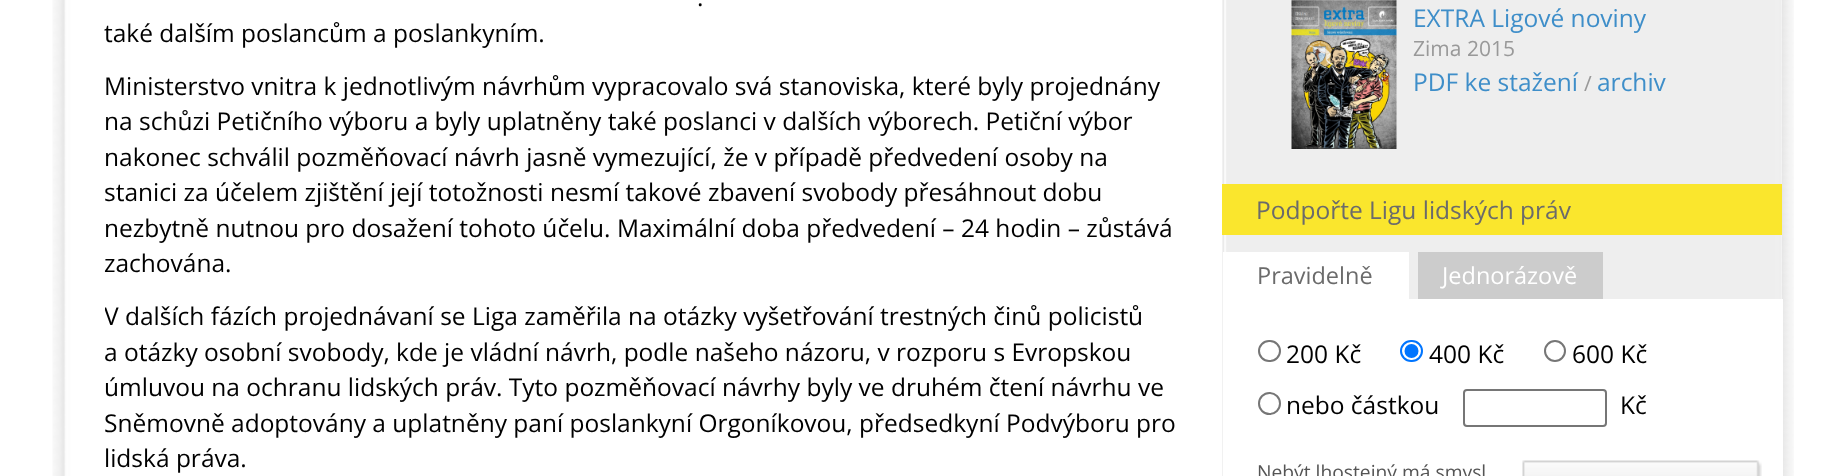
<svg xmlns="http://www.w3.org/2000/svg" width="1845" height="476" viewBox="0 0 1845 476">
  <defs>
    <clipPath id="clip1"><path d="M105 0h1078v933H105z"/></clipPath>
  </defs>
  <rect width="100%" height="100%" fill="#fff"/>
  <image x="52" y="0" width="1742" height="476" href="img/1.png"/>
  <image x="1222" y="0" width="559" height="476" href="img/2.png"/>
  <image x="1291" y="0" width="106" height="149" href="img/3.png"/>
  <path d="M1222 184h560v51H1222z" fill="#fae62d"/>
  <path d="M1223 252h186v47H1223z" fill="#fff"/>
  <path d="M1418 252h185v47H1418z" fill="#ccc"/>
  <path d="M1223 299h560v177H1223z" fill="#fff"/>
  <rect x="1259" y="341" width="21" height="20" rx="10" fill="none" stroke="#767676" stroke-width="2"/>
  <rect x="1401" y="341" width="21" height="20" rx="10" fill="none" stroke="#0075ff" stroke-width="2"/>
  <circle cx="1411.5" cy="351" r="7" fill="#0075ff"/>
  <circle cx="1555" cy="351" r="10" fill="none" stroke="#767676" stroke-width="2"/>
  <circle cx="1269.5" cy="403.5" r="10.5" fill="none" stroke="#767676" stroke-width="2"/>
  <rect x="1464" y="390" width="142" height="36" rx="3" fill="none" stroke="#767676" stroke-width="2"/>
  <image x="1522" y="460" width="240" height="16" href="img/4.png"/>
  <g font-family="Open Sans" font-size="24.5" fill="#000">
    <text x="697" y="6">.</text>
    <text x="104" y="42">také dalším poslancům a poslankyním.</text>
    <text x="104" y="95">Ministerstvo vnitra k jednotlivým návrhům vypracovalo svá stanoviska, které byly projednány</text>
    <text x="104" y="130">na schůzi Petičního výboru a byly uplatněny také poslanci v dalších výborech. Petiční výbor</text>
    <text x="104" y="166">nakonec schválil pozměňovací návrh jasně vymezující, že v případě předvedení osoby na</text>
    <text x="104" y="201">stanici za účelem zjištění její totožnosti nesmí takové zbavení svobody přesáhnout dobu</text>
    <text x="104" y="237">nezbytně nutnou pro dosažení tohoto účelu. Maximální doba předvedení – 24 hodin – zůstává</text>
    <text x="104" y="272">zachována.</text>
  </g>
  <g clip-path="url(#clip1)">
    <text x="104" y="325" font-family="Open Sans" font-size="24.5" fill="#000">V dalších fázích projednávaní se Liga zaměřila na otázky vyšetřování trestných činů policistů</text>
  </g>
  <g font-family="Open Sans" font-size="24.5" fill="#000">
    <text x="104" y="361">a otázky osobní svobody, kde je vládní návrh, podle našeho názoru, v rozporu s Evropskou</text>
    <text x="104" y="396">úmluvou na ochranu lidských práv. Tyto pozměňovací návrhy byly ve druhém čtení návrhu ve</text>
    <text x="104" y="432">Sněmovně adoptovány a uplatněny paní poslankyní Orgoníkovou, předsedkyní Podvýboru pro</text>
    <text x="104" y="467">lidská práva.</text>
  </g>
  <text x="1413" y="27" font-family="Open Sans" font-size="24.5" fill="#3e8ec9">EXTRA Ligové noviny</text>
  <text x="1413" y="56" font-family="Open Sans" font-size="21" fill="#999">Zima 2015</text>
  <text x="1413" y="91" font-family="Open Sans" font-size="24.5" fill="#3e8ec9">PDF ke stažení</text>
  <text x="1584" y="91" font-family="Open Sans" font-size="21" fill="#999">/</text>
  <text x="1597" y="91" font-family="Open Sans" font-size="24.5" fill="#3e8ec9">archiv</text>
  <text x="1256" y="219" font-family="Open Sans" font-size="24.5" fill="#6b6b6b">Podpořte Ligu lidských práv</text>
  <text x="1257" y="284" font-family="Open Sans" font-size="23.5" fill="#6b6b6b">Pravidelně</text>
  <text x="1442" y="284" font-family="Open Sans" font-size="23.5" fill="#fff">Jednorázově</text>
  <g font-family="Open Sans" font-size="24.5" fill="#000">
    <text x="1286" y="363">200 Kč</text>
    <text x="1429" y="363">400 Kč</text>
    <text x="1572" y="363">600 Kč</text>
    <text x="1286" y="414">nebo částkou</text>
    <text x="1620" y="414">Kč</text>
  </g>
  <text x="1257" y="479" font-family="Open Sans" font-size="19.25" fill="#555">Nebýt lhostejný má smysl</text>
</svg>
